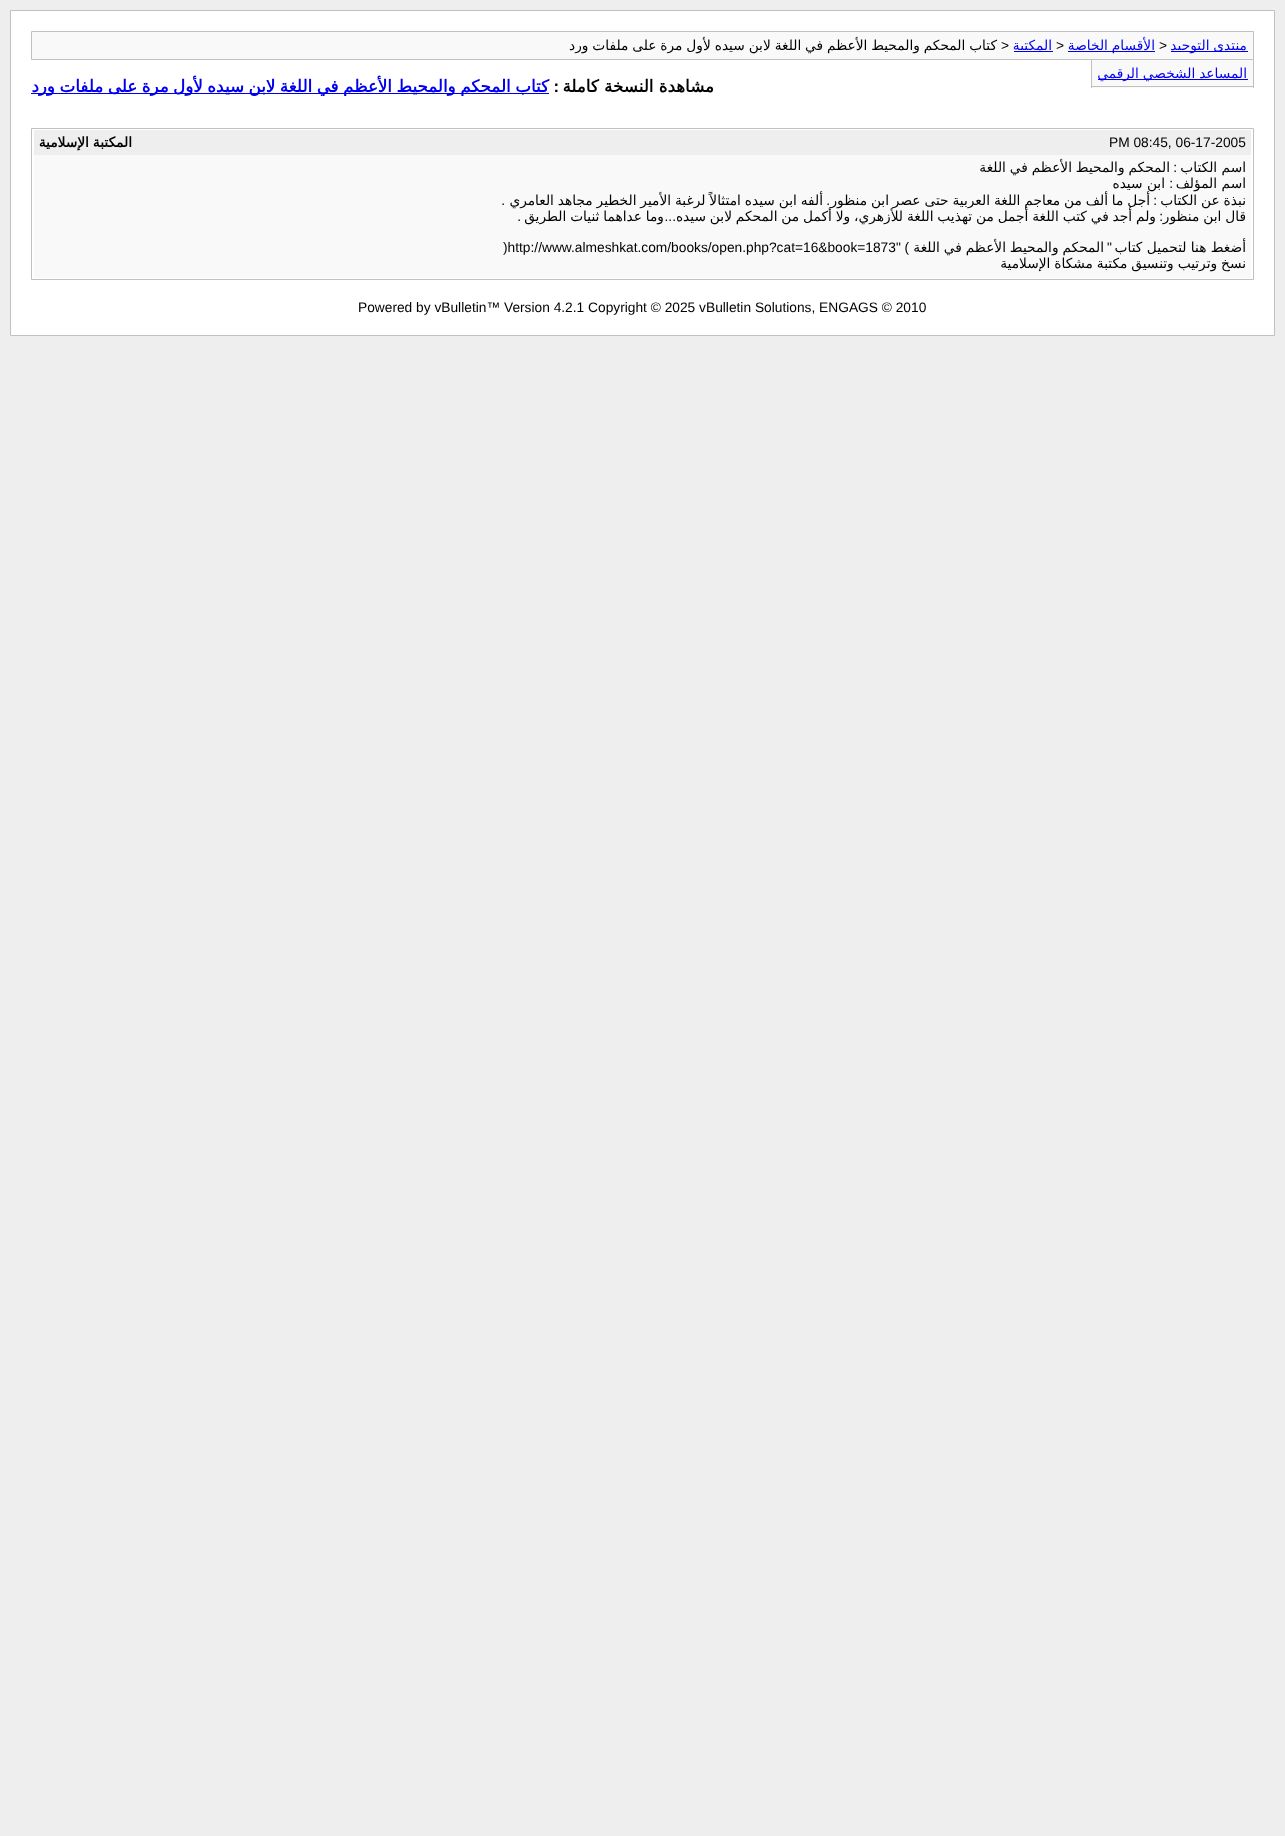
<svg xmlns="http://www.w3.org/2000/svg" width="1285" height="1836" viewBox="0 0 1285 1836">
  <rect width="100%" height="100%" fill="#eee"/>
  <path d="M10.5 10.5h1264v325H10.5z" fill="#fff" stroke="#c0c0c0"/>
  <path d="M31.5 31.5h1222v28H31.5z" fill="#f9f9f9" stroke="#c0c0c0"/>
  <path d="M1171 51h77v1H1171z" fill="#00e"/>
  <path d="M1068 51h87v1H1068z" fill="#00e"/>
  <path d="M1014 51h39v1H1014z" fill="#00e"/>
  <path d="M1092 60h161v28H1092z" fill="#f9f9f9"/>
  <path d="M1253 60h1v28H1253z" fill="#c0c0c0"/>
  <path d="M1091 86h163v1H1091z" fill="#c0c0c0"/>
  <path d="M1091 60h1v28H1091z" fill="#c0c0c0"/>
  <path d="M1098 79h150v1H1098z" fill="#00e"/>
  <path d="M31 93h518v1H31z" fill="#00e"/>
  <path d="M31.5 128.5h1222v151H31.5z" fill="none" stroke="#c0c0c0"/>
  <path d="M34 130h1217v25H34z" fill="#eee"/>
  <path d="M34 155h1217v123H34z" fill="#f9f9f9"/>
  <text x="1247" y="50" word-spacing="-0.5" font-family="DejaVu Sans" font-size="13.75" direction="rtl" fill="#00e">منتدى التوحيد</text>
  <text x="1159" y="50" font-family="Liberation Sans" font-size="13.75" fill="#000">&gt;</text>
  <text x="1155" y="50" word-spacing="-0.5" font-family="DejaVu Sans" font-size="13.75" direction="rtl" fill="#00e">الأقسام الخاصة</text>
  <text x="1056" y="50" font-family="Liberation Sans" font-size="13.75" fill="#000">&gt;</text>
  <text x="1052" y="50" font-family="DejaVu Sans" font-size="13.75" direction="rtl" fill="#00e">المكتبة</text>
  <text x="1001" y="50" font-family="Liberation Sans" font-size="13.75" fill="#000">&gt;</text>
  <text x="997" y="50" word-spacing="-0.5" font-family="DejaVu Sans" font-size="13.75" direction="rtl" fill="#000">كتاب المحكم والمحيط الأعظم في اللغة لابن سيده لأول مرة على ملفات ورد</text>
  <text x="1247" y="78" word-spacing="-0.5" font-family="DejaVu Sans" font-size="13.75" direction="rtl" fill="#00e">المساعد الشخصي الرقمي</text>
  <text x="714" y="92" font-family="DejaVu Sans" font-size="16.7" font-weight="bold" direction="rtl" fill="#000">مشاهدة النسخة كاملة</text>
  <text x="559" y="92" font-family="Liberation Sans" font-size="16.7" font-weight="bold" direction="rtl" fill="#000">:</text>
  <text x="549" y="92" word-spacing="-0.75" font-family="DejaVu Sans" font-size="16.7" font-weight="bold" direction="rtl" fill="#00e">كتاب المحكم والمحيط الأعظم في اللغة لابن سيده لأول مرة على ملفات ورد</text>
  <text x="1109" y="147" font-family="Liberation Sans" font-size="13.75" fill="#000">PM 08:45, 06-17-2005</text>
  <text x="132" y="147" word-spacing="-0.5" font-family="DejaVu Sans" font-size="13.75" font-weight="bold" direction="rtl" fill="#000">المكتبة الإسلامية</text>
  <text x="1246" y="172" font-family="DejaVu Sans" font-size="13.75" direction="rtl" fill="#000">اسم الكتاب</text>
  <text x="1177" y="172" font-family="Liberation Sans" font-size="13.75" direction="rtl" fill="#000">:</text>
  <g font-family="DejaVu Sans" font-size="13.75" direction="rtl" fill="#000">
    <text x="1170" y="172" word-spacing="-0.5">المحكم والمحيط الأعظم في اللغة</text>
    <text x="1246" y="188">اسم المؤلف</text>
  </g>
  <text x="1173" y="188" font-family="Liberation Sans" font-size="13.75" direction="rtl" fill="#000">:</text>
  <g font-family="DejaVu Sans" font-size="13.75" direction="rtl" fill="#000">
    <text x="1165" y="188">ابن سيده</text>
    <text x="1246" y="205" word-spacing="-0.5">نبذة عن الكتاب</text>
  </g>
  <text x="1157" y="205" font-family="Liberation Sans" font-size="13.75" direction="rtl" fill="#000">:</text>
  <text x="1150" y="205" word-spacing="-0.5" font-family="DejaVu Sans" font-size="13.75" direction="rtl" fill="#000">أجل ما ألف من معاجم اللغة العربية حتى عصر ابن منظور</text>
  <text x="830" y="205" font-family="Liberation Sans" font-size="13.75" direction="rtl" fill="#000">.</text>
  <text x="823" y="205" word-spacing="-0.5" font-family="DejaVu Sans" font-size="13.75" direction="rtl" fill="#000">ألفه ابن سيده امتثالاً لرغبة الأمير الخطير مجاهد العامري</text>
  <text x="505" y="205" font-family="Liberation Sans" font-size="13.75" direction="rtl" fill="#000">.</text>
  <text x="1246" y="221" word-spacing="-0.5" font-family="DejaVu Sans" font-size="13.75" direction="rtl" fill="#000">قال ابن منظور</text>
  <text x="1163" y="221" font-family="Liberation Sans" font-size="13.75" direction="rtl" fill="#000">:</text>
  <text x="1156" y="221" word-spacing="-0.5" font-family="DejaVu Sans" font-size="13.75" direction="rtl" fill="#000">ولم أجد في كتب اللغة أجمل من تهذيب اللغة للأزهري، ولا أكمل من المحكم لابن سيده</text>
  <text x="676" y="221" font-family="Liberation Sans" font-size="13.75" direction="rtl" fill="#000">...</text>
  <text x="664" y="221" word-spacing="-0.5" font-family="DejaVu Sans" font-size="13.75" direction="rtl" fill="#000">وما عداهما ثنيات الطريق</text>
  <text x="521" y="221" font-family="Liberation Sans" font-size="13.75" direction="rtl" fill="#000">.</text>
  <text x="1246" y="252" font-family="DejaVu Sans" font-size="13.75" direction="rtl" fill="#000">أضغط هنا لتحميل كتاب</text>
  <text x="1112" y="252" font-family="Liberation Sans" font-size="13.75" direction="rtl" fill="#000">"</text>
  <text x="1104" y="252" word-spacing="-0.5" font-family="DejaVu Sans" font-size="13.75" direction="rtl" fill="#000">المحكم والمحيط الأعظم في اللغة</text>
  <text x="503" y="252" font-family="Liberation Sans" font-size="13.75" fill="#000">)http://www.almeshkat.com/books/open.php?cat=16&amp;book=1873" (</text>
  <text x="1246" y="268" word-spacing="-0.5" font-family="DejaVu Sans" font-size="13.75" direction="rtl" fill="#000">نسخ وترتيب وتنسيق مكتبة مشكاة الإسلامية</text>
  <text x="358" y="312" font-family="Liberation Sans" font-size="13.75" fill="#000">Powered by vBulletin™ Version 4.2.1 Copyright © 2025 vBulletin Solutions, ENGAGS © 2010</text>
</svg>
